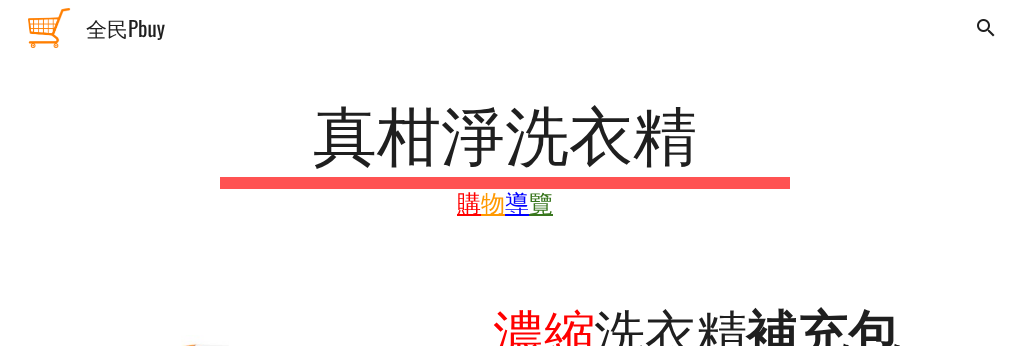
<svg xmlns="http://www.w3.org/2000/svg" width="1010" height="346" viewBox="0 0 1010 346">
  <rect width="100%" height="100%" fill="#fff"/>
  <image x="28" y="8" width="43" height="40" href="img/1.png"/>
  <image x="977" y="19" width="18" height="18" href="img/2.png"/>
  <path d="M220 177h570v12H220z" fill="#ff5252"/>
  <path d="M457 214h24v2H457z" fill="#f00"/>
  <path d="M481 214h24v2H481z" fill="#f90"/>
  <path d="M505 214h24v2H505z" fill="#00f"/>
  <path d="M529 214h24v2H529z" fill="#38761d"/>
  <image x="181" y="335" width="48" height="11" href="img/3.png"/>
  <text x="86" y="37" font-family="WenQuanYi Zen Hei" font-size="21" font-weight="500" fill="#1f1f1f">全民</text>
  <text x="128" y="37" font-family="Oswald" font-size="21" fill="#1f1f1f">Pbuy</text>
  <text x="313" y="159" font-family="WenQuanYi Zen Hei" font-size="64" font-weight="500" fill="#1f1f1f">真柑淨洗衣精</text>
  <text x="457" y="212" font-family="WenQuanYi Zen Hei" font-size="24" font-weight="500" fill="#f00">購</text>
  <text x="481" y="212" font-family="WenQuanYi Zen Hei" font-size="24" font-weight="500" fill="#f90">物</text>
  <text x="505" y="212" font-family="WenQuanYi Zen Hei" font-size="24" font-weight="500" fill="#00f">導</text>
  <text x="529" y="212" font-family="WenQuanYi Zen Hei" font-size="24" font-weight="500" fill="#38761d">覽</text>
  <text x="493" y="352" font-family="WenQuanYi Zen Hei" font-size="51" font-weight="500" fill="#f00">濃縮</text>
  <text x="594" y="352" font-family="WenQuanYi Zen Hei" font-size="51" font-weight="500" fill="#1f1f1f">洗衣精</text>
  <text x="746" y="352" font-family="WenQuanYi Zen Hei" font-size="51" font-weight="bold" fill="#1f1f1f">補充包</text>
</svg>
